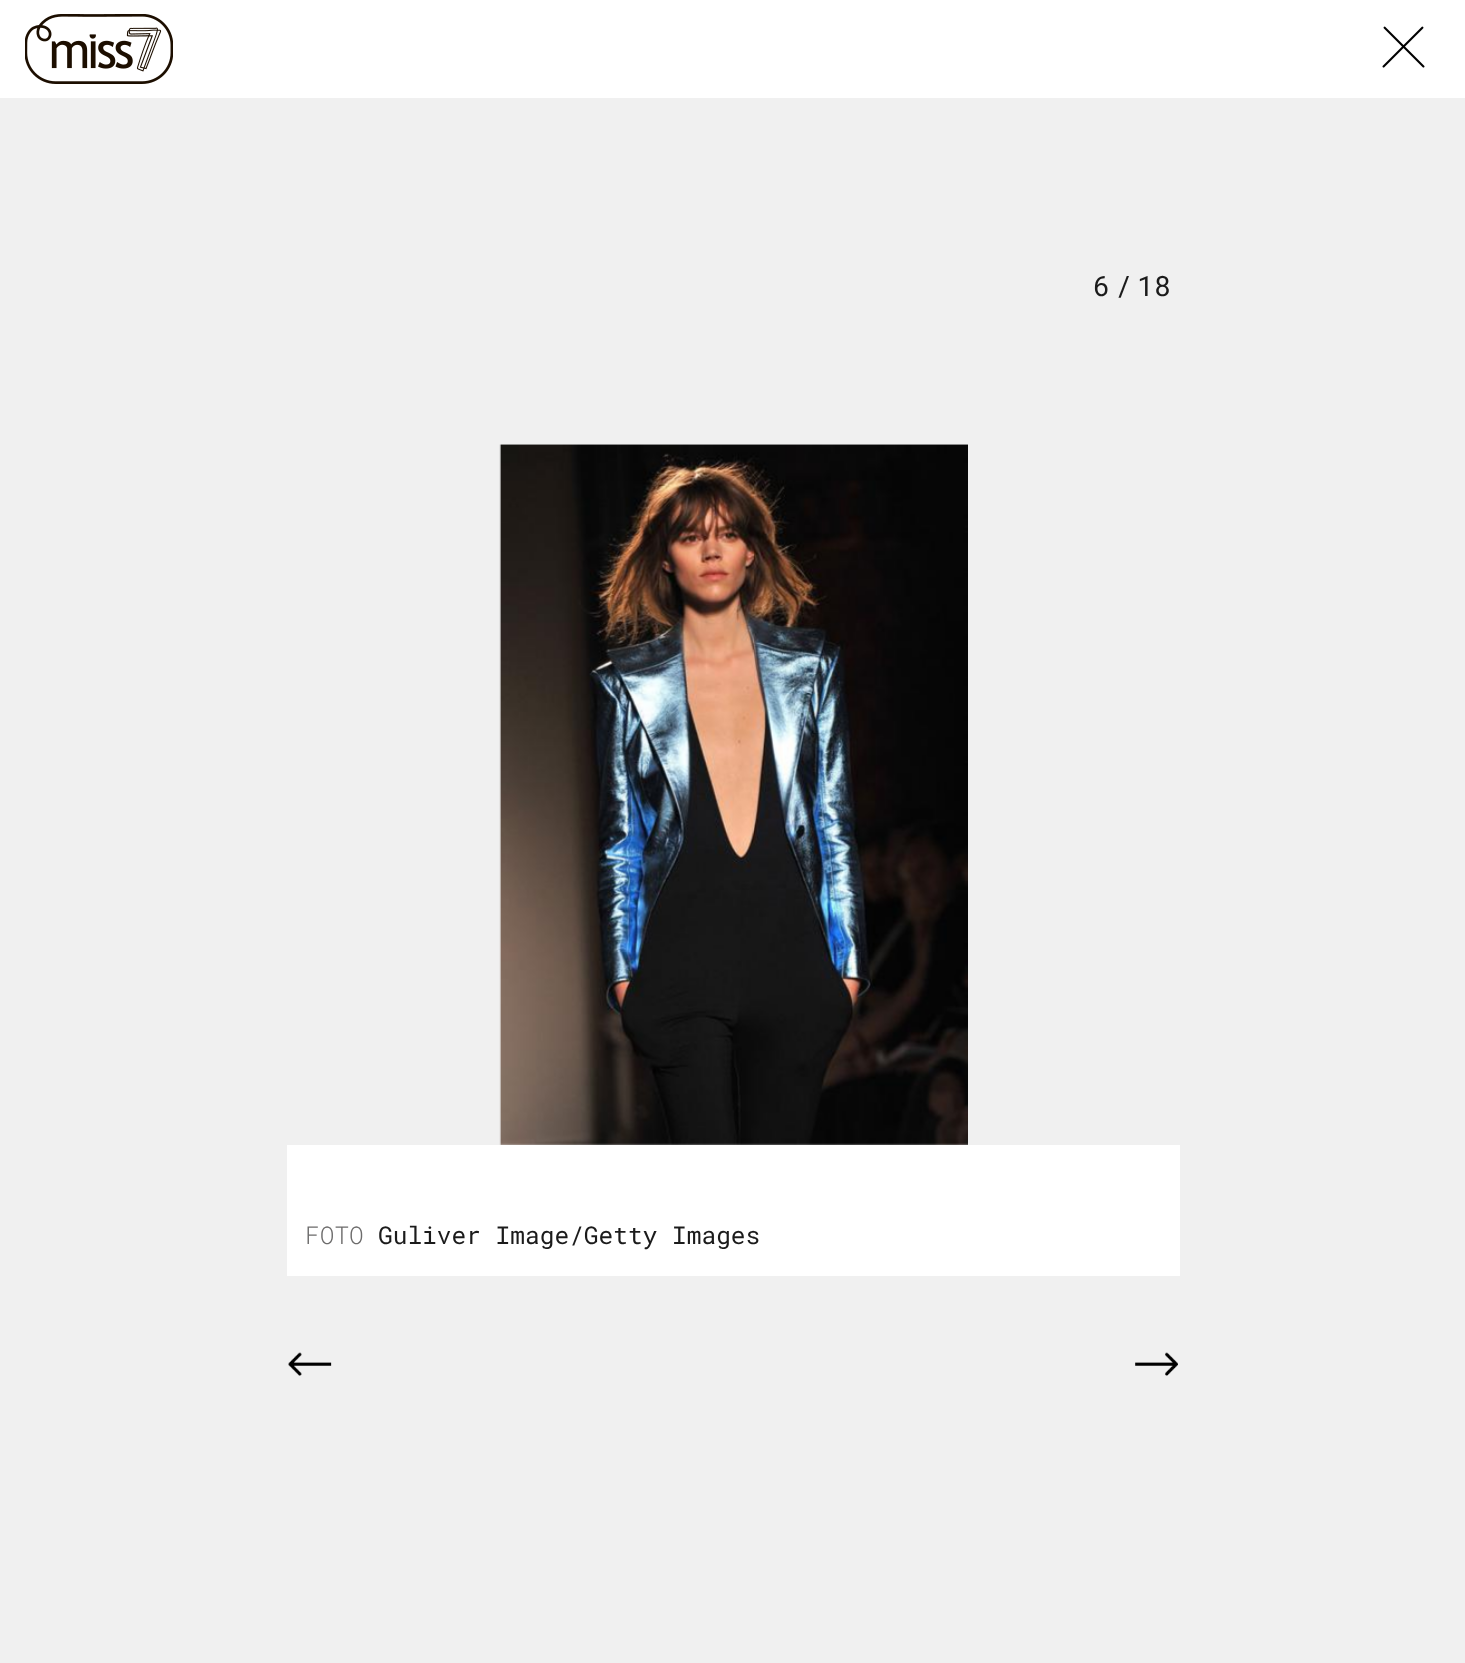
<svg xmlns="http://www.w3.org/2000/svg" width="1465" height="1663" viewBox="0 0 1465 1663">
  <rect width="100%" height="100%" fill="#f0f0f0"/>
  <path d="M0 0h1465v98H0z" fill="#fff"/>
  <image x="25" y="14" width="148" height="70" href="img/1.png"/>
  <image x="1382" y="26" width="43" height="42" href="img/2.png"/>
  <image x="499" y="444" width="469" height="701" href="img/3.png"/>
  <path d="M287 1145h893v131H287z" fill="#fff"/>
  <image x="288" y="1352" width="44" height="24" href="img/4.png"/>
  <image x="1135" y="1352" width="43" height="24" href="img/5.png"/>
  <g font-family="Roboto Mono" font-size="28" fill="#1b1b1b">
    <text x="1093" y="296">6</text>
    <text x="1115" y="296">/</text>
    <text x="1137" y="296">18</text>
  </g>
  <text x="305" y="1244" font-family="Roboto Mono" font-size="24.5" font-weight="300" fill="#6d6c6c">FOTO</text>
  <text x="378" y="1244" font-family="Roboto Mono" font-size="24.5" fill="#1b1b1b">Guliver Image/Getty Images</text>
</svg>
